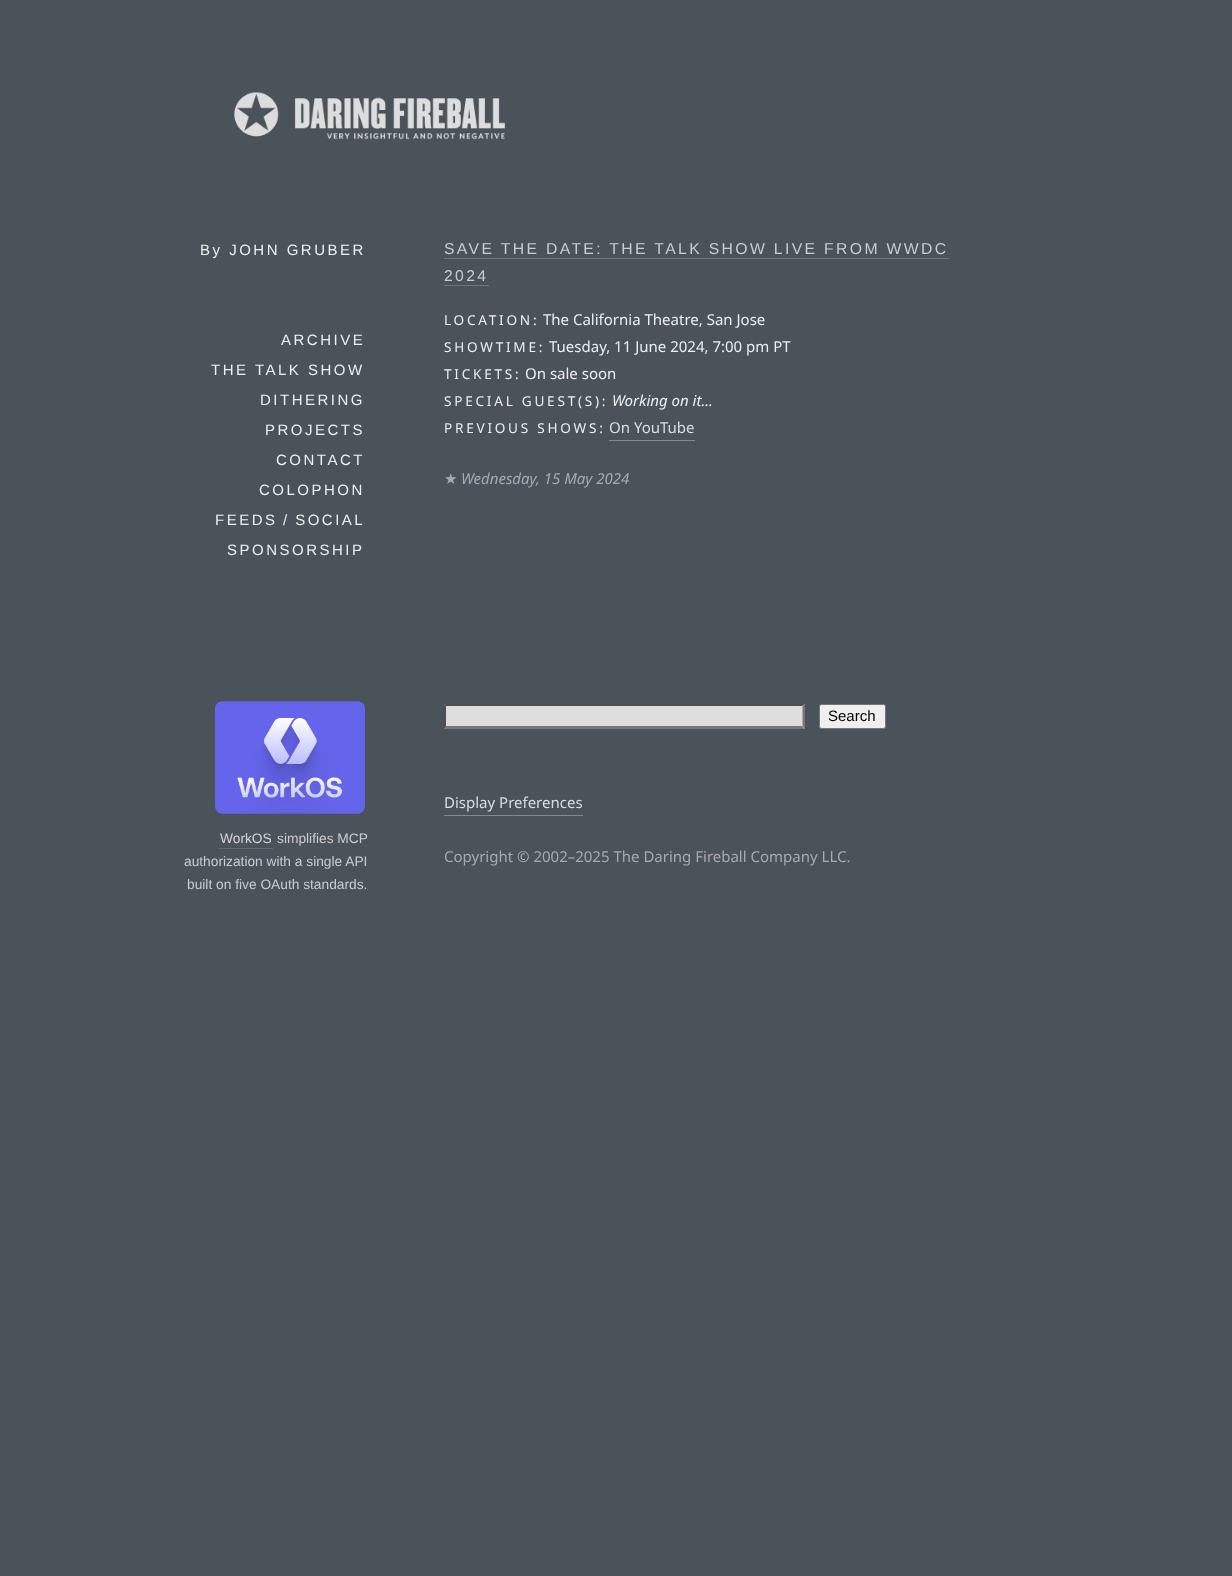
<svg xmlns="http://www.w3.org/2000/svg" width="1232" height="1576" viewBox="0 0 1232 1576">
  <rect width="100%" height="100%" fill="#4a525a"/>
  <image x="234" y="92" width="271" height="48" href="img/1.png"/>
  <image x="215" y="701" width="150" height="113" href="img/2.png"/>
  <path d="M219 848h54v1H219z" fill="#626a73"/>
  <path d="M444 258h505v1H444z" fill="#72767a"/>
  <path d="M444 285h45v1H444z" fill="#72767a"/>
  <path d="M609 440h86v1H609z" fill="#888"/>
  <path d="M444 704h361v25H444z" fill="#ddd"/>
  <path d="M444 704H805L802 706H446Z" fill="#4f4f4f"/>
  <path d="M805 704V729L802.5 726V706Z" fill="#767676"/>
  <path d="M805 729H444L446 726H802Z" fill="#767676"/>
  <path d="M444 729V704L446 706V726Z" fill="#4f4f4f"/>
  <rect x="819.5" y="704.5" width="66" height="24" rx="2" fill="#efefef" stroke="#767676"/>
  <path d="M444 815h139v1H444z" fill="#888"/>
  <g font-family="Liberation Sans" font-size="15" letter-spacing="2.5" fill="#eee">
    <text x="200" y="255">By JOHN GRUBER</text>
    <text x="281" y="345">ARCHIVE</text>
    <text x="211" y="375">THE TALK SHOW</text>
    <text x="260" y="405">DITHERING</text>
    <text x="265" y="435">PROJECTS</text>
    <text x="276" y="465">CONTACT</text>
    <text x="259" y="495">COLOPHON</text>
    <text x="215" y="525">FEEDS / SOCIAL</text>
    <text x="227" y="555">SPONSORSHIP</text>
  </g>
  <text x="220" y="843" font-family="Liberation Sans" font-size="13.75" fill="#d5d5d5">WorkOS</text>
  <g font-family="Liberation Sans" font-size="13.75" fill="#ccc">
    <text x="277" y="843">simplifies MCP</text>
    <text x="184" y="866">authorization with a single API</text>
    <text x="187" y="889">built on five OAuth standards.</text>
  </g>
  <g font-family="Liberation Sans" font-size="15.75" letter-spacing="2.35" fill="#ccc">
    <text x="444" y="254">SAVE THE DATE: THE TALK SHOW LIVE FROM WWDC</text>
    <text x="444" y="281">2024</text>
  </g>
  <text x="444" y="325" font-family="Noto Sans" font-size="13.6" letter-spacing="2.75" fill="#eee">LOCATION:</text>
  <text x="543" y="325" font-family="Noto Sans" font-size="15" fill="#eee">The California Theatre, San Jose</text>
  <text x="444" y="352" font-family="Noto Sans" font-size="13.6" letter-spacing="2.75" fill="#eee">SHOWTIME:</text>
  <text x="549" y="352" font-family="Noto Sans" font-size="15" fill="#eee">Tuesday, 11 June 2024, 7:00 pm PT</text>
  <text x="444" y="379" font-family="Noto Sans" font-size="13.6" letter-spacing="2.75" fill="#eee">TICKETS:</text>
  <text x="525" y="379" font-family="Noto Sans" font-size="15" fill="#eee">On sale soon</text>
  <text x="444" y="406" font-family="Noto Sans" font-size="13.6" letter-spacing="2.75" fill="#eee">SPECIAL GUEST(S):</text>
  <text x="612" y="406" font-family="Noto Sans" font-size="15" font-style="italic" fill="#eee">Working on it...</text>
  <text x="444" y="433" font-family="Noto Sans" font-size="13.6" letter-spacing="2.75" fill="#eee">PREVIOUS SHOWS:</text>
  <text x="609" y="433" font-family="Noto Sans" font-size="15" fill="#ddd">On YouTube</text>
  <text x="444" y="484" font-family="DejaVu Sans" font-size="15" fill="#aaa">★</text>
  <text x="461" y="484" font-family="Noto Sans" font-size="15" font-style="italic" fill="#aaa">Wednesday, 15 May 2024</text>
  <text x="828" y="721" font-family="Liberation Sans" font-size="15" fill="#000">Search</text>
  <text x="444" y="808" font-family="Noto Sans" font-size="15" fill="#ddd">Display Preferences</text>
  <text x="444" y="862" font-family="Noto Sans" font-size="15" fill="#aaa">Copyright © 2002–2025 The Daring Fireball Company LLC.</text>
</svg>
